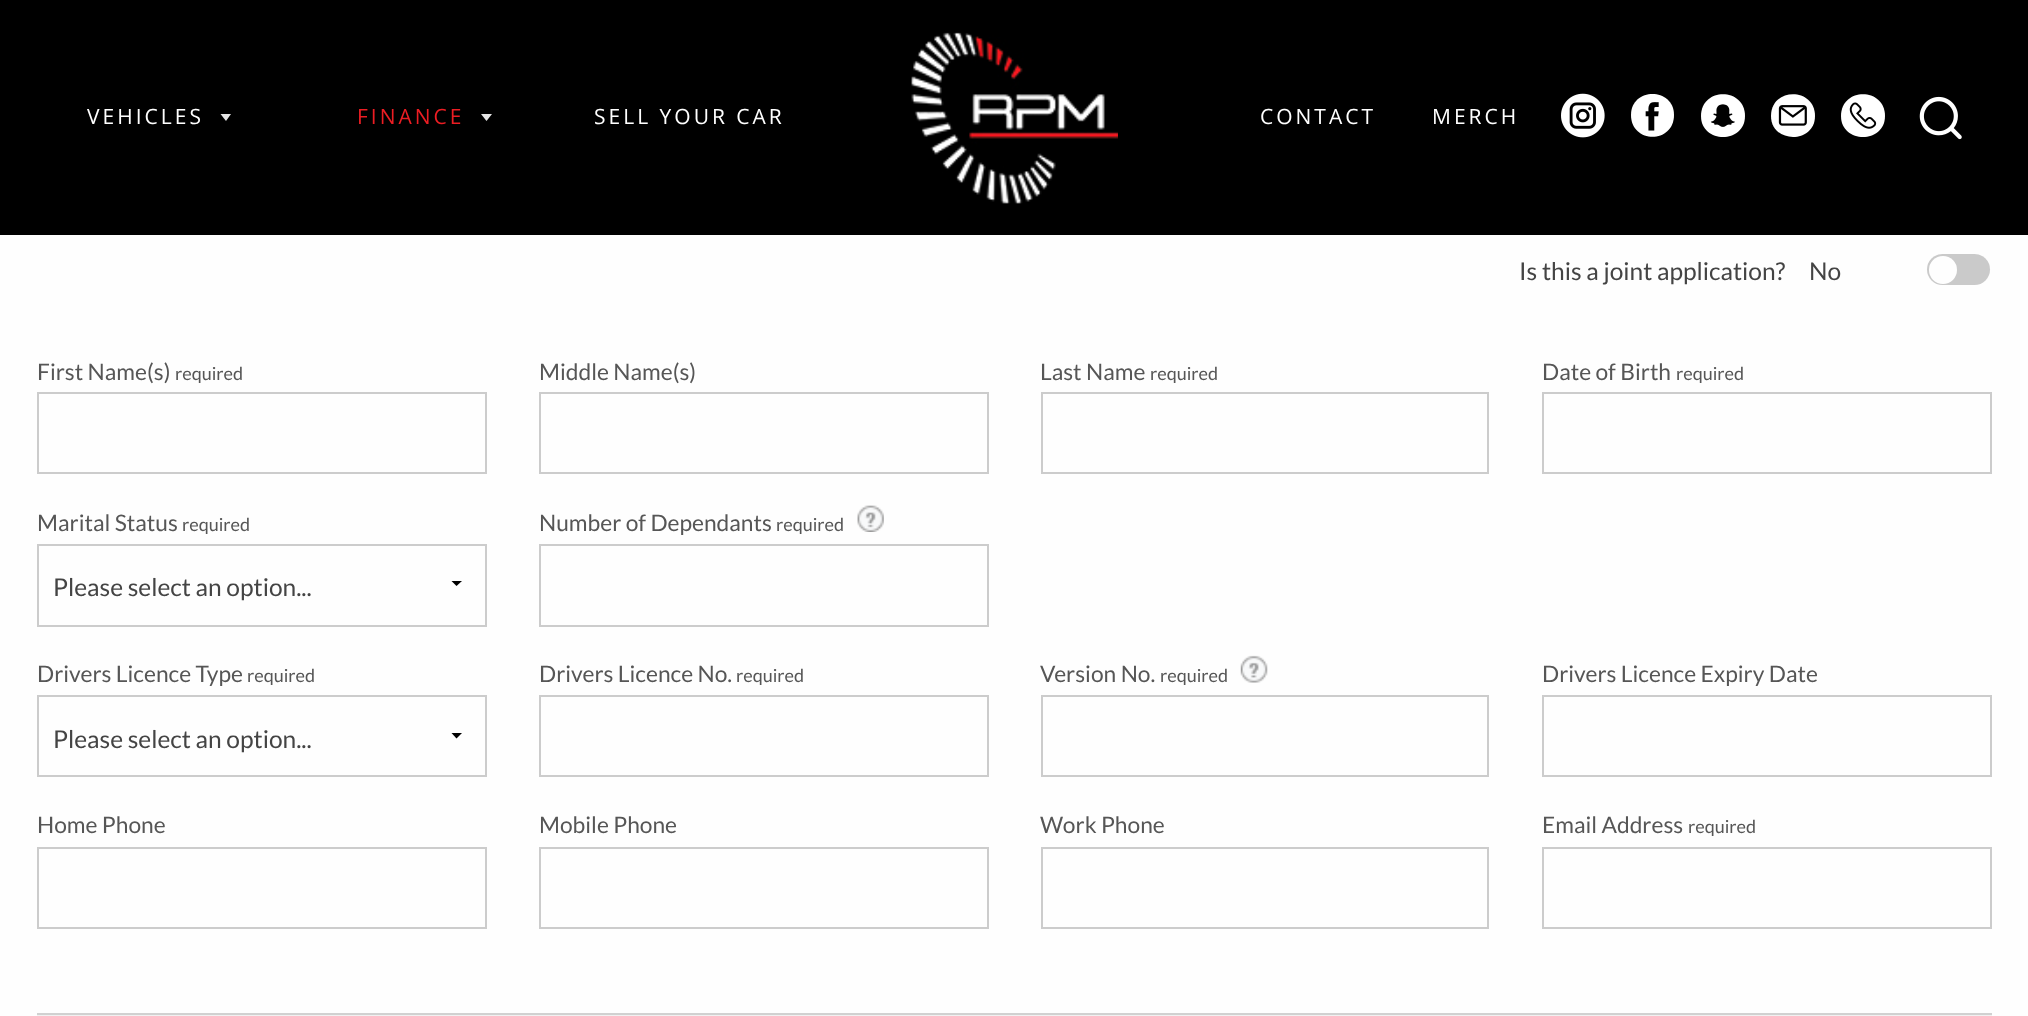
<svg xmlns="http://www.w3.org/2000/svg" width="2028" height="1016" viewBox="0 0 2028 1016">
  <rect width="100%" height="100%" fill="#fefefe"/>
  <path d="M0 0h2028v235H0z" fill="#000"/>
  <path d="M220.5 114H231L226 121Z" fill="#e6e6e6"/>
  <path d="M481 114H492L486.5 121Z" fill="#e6e6e6"/>
  <image x="911" y="32" width="207" height="172" href="img/1.png"/>
  <image x="1561" y="93" width="44" height="45" href="img/2.png"/>
  <path d="M1674 115C1674 144 1631 144 1631 115C1631 87 1674 87 1674 115Z" fill="#fff"/>
  <image x="1645" y="102" width="14" height="29" href="img/3.png"/>
  <path d="M1745 116C1745 144 1701 144 1701 116C1701 87 1745 87 1745 116Z" fill="#fff"/>
  <image x="1710" y="104" width="25" height="23" href="img/4.png"/>
  <path d="M1815 116C1815 144 1771 144 1771 116C1771 87 1815 87 1815 116Z" fill="#fff"/>
  <image x="1778" y="105" width="29" height="21" href="img/5.png"/>
  <path d="M1885 116C1885 144 1841 144 1841 116C1841 87 1885 87 1885 116Z" fill="#fff"/>
  <image x="1849" y="102" width="28" height="27" href="img/6.png"/>
  <image x="1919" y="96" width="43" height="44" href="img/7.png"/>
  <rect x="1927" y="254" width="63" height="31" rx="15.5" fill="#cacaca"/>
  <circle cx="1943" cy="270" r="14" fill="#fefefe"/>
  <path d="M38 393h448v80H38z" fill="none" stroke="#ccc" stroke-width="2"/>
  <path d="M540 393h448v80H540z" fill="none" stroke="#ccc" stroke-width="2"/>
  <path d="M1042 393h446v80H1042z" fill="none" stroke="#ccc" stroke-width="2"/>
  <path d="M1543 393h448v80H1543z" fill="none" stroke="#ccc" stroke-width="2"/>
  <path d="M38 545h448v81H38z" fill="none" stroke="#ccc" stroke-width="2"/>
  <path d="M462 581L456.5 586L451.5 581Z" fill="#000"/>
  <image x="857" y="505" width="27" height="27" href="img/8.png"/>
  <path d="M540 545h448v81H540z" fill="none" stroke="#ccc" stroke-width="2"/>
  <path d="M38 696h448v80H38z" fill="none" stroke="#ccc" stroke-width="2"/>
  <path d="M462 733L456.5 738.5L451.5 733Z" fill="#000"/>
  <path d="M540 696h448v80H540z" fill="none" stroke="#ccc" stroke-width="2"/>
  <image x="1240" y="655" width="28" height="28" href="img/9.png"/>
  <path d="M1042 696h446v80H1042z" fill="none" stroke="#ccc" stroke-width="2"/>
  <path d="M1543 696h448v80H1543z" fill="none" stroke="#ccc" stroke-width="2"/>
  <path d="M38 848h448v80H38z" fill="none" stroke="#ccc" stroke-width="2"/>
  <path d="M540 848h448v80H540z" fill="none" stroke="#ccc" stroke-width="2"/>
  <path d="M1042 848h446v80H1042z" fill="none" stroke="#ccc" stroke-width="2"/>
  <path d="M1543 848h448v80H1543z" fill="none" stroke="#ccc" stroke-width="2"/>
  <path d="M37 1013h1955v2H37z" fill="#d1d1d1"/>
  <path d="M37 1015h1955v1H37z" fill="#f1f1f1"/>
  <text x="87" y="124" font-family="Open Sans" font-size="21" letter-spacing="3" fill="#fff">VEHICLES</text>
  <text x="357" y="124" font-family="Open Sans" font-size="21" letter-spacing="3" fill="#ec1d23">FINANCE</text>
  <g font-family="Open Sans" font-size="21" letter-spacing="3" fill="#fff">
    <text x="594" y="124">SELL YOUR CAR</text>
    <text x="1260" y="124">CONTACT</text>
    <text x="1432" y="124">MERCH</text>
  </g>
  <g font-family="Lato" font-size="24.5" fill="#444">
    <text x="1519" y="280">Is this a joint application?</text>
    <text x="1809" y="280">No</text>
  </g>
  <text x="37" y="380" font-family="Lato" font-size="22.75" fill="#565656">First Name(s)</text>
  <text x="175" y="380" font-family="Lato" font-size="18" fill="#565656">required</text>
  <g font-family="Lato" font-size="22.75" fill="#565656">
    <text x="539" y="380">Middle Name(s)</text>
    <text x="1040" y="380">Last Name</text>
  </g>
  <text x="1150" y="380" font-family="Lato" font-size="18" fill="#565656">required</text>
  <text x="1542" y="380" font-family="Lato" font-size="22.75" fill="#565656">Date of Birth</text>
  <text x="1676" y="380" font-family="Lato" font-size="18" fill="#565656">required</text>
  <text x="37" y="531" font-family="Lato" font-size="22.75" fill="#565656">Marital Status</text>
  <text x="182" y="531" font-family="Lato" font-size="18" fill="#565656">required</text>
  <text x="53" y="596" font-family="Lato" font-size="24.5" fill="#444">Please select an option...</text>
  <text x="539" y="531" font-family="Lato" font-size="22.75" fill="#565656">Number of Dependants</text>
  <text x="776" y="531" font-family="Lato" font-size="18" fill="#565656">required</text>
  <text x="37" y="682" font-family="Lato" font-size="22.75" fill="#565656">Drivers Licence Type</text>
  <text x="247" y="682" font-family="Lato" font-size="18" fill="#565656">required</text>
  <text x="53" y="748" font-family="Lato" font-size="24.5" fill="#444">Please select an option...</text>
  <text x="539" y="682" font-family="Lato" font-size="22.75" fill="#565656">Drivers Licence No.</text>
  <text x="736" y="682" font-family="Lato" font-size="18" fill="#565656">required</text>
  <text x="1040" y="682" font-family="Lato" font-size="22.75" fill="#565656">Version No.</text>
  <text x="1160" y="682" font-family="Lato" font-size="18" fill="#565656">required</text>
  <g font-family="Lato" font-size="22.75" fill="#565656">
    <text x="1542" y="682">Drivers Licence Expiry Date</text>
    <text x="37" y="833">Home Phone</text>
    <text x="539" y="833">Mobile Phone</text>
    <text x="1040" y="833">Work Phone</text>
    <text x="1542" y="833">Email Address</text>
  </g>
  <text x="1688" y="833" font-family="Lato" font-size="18" fill="#565656">required</text>
</svg>
